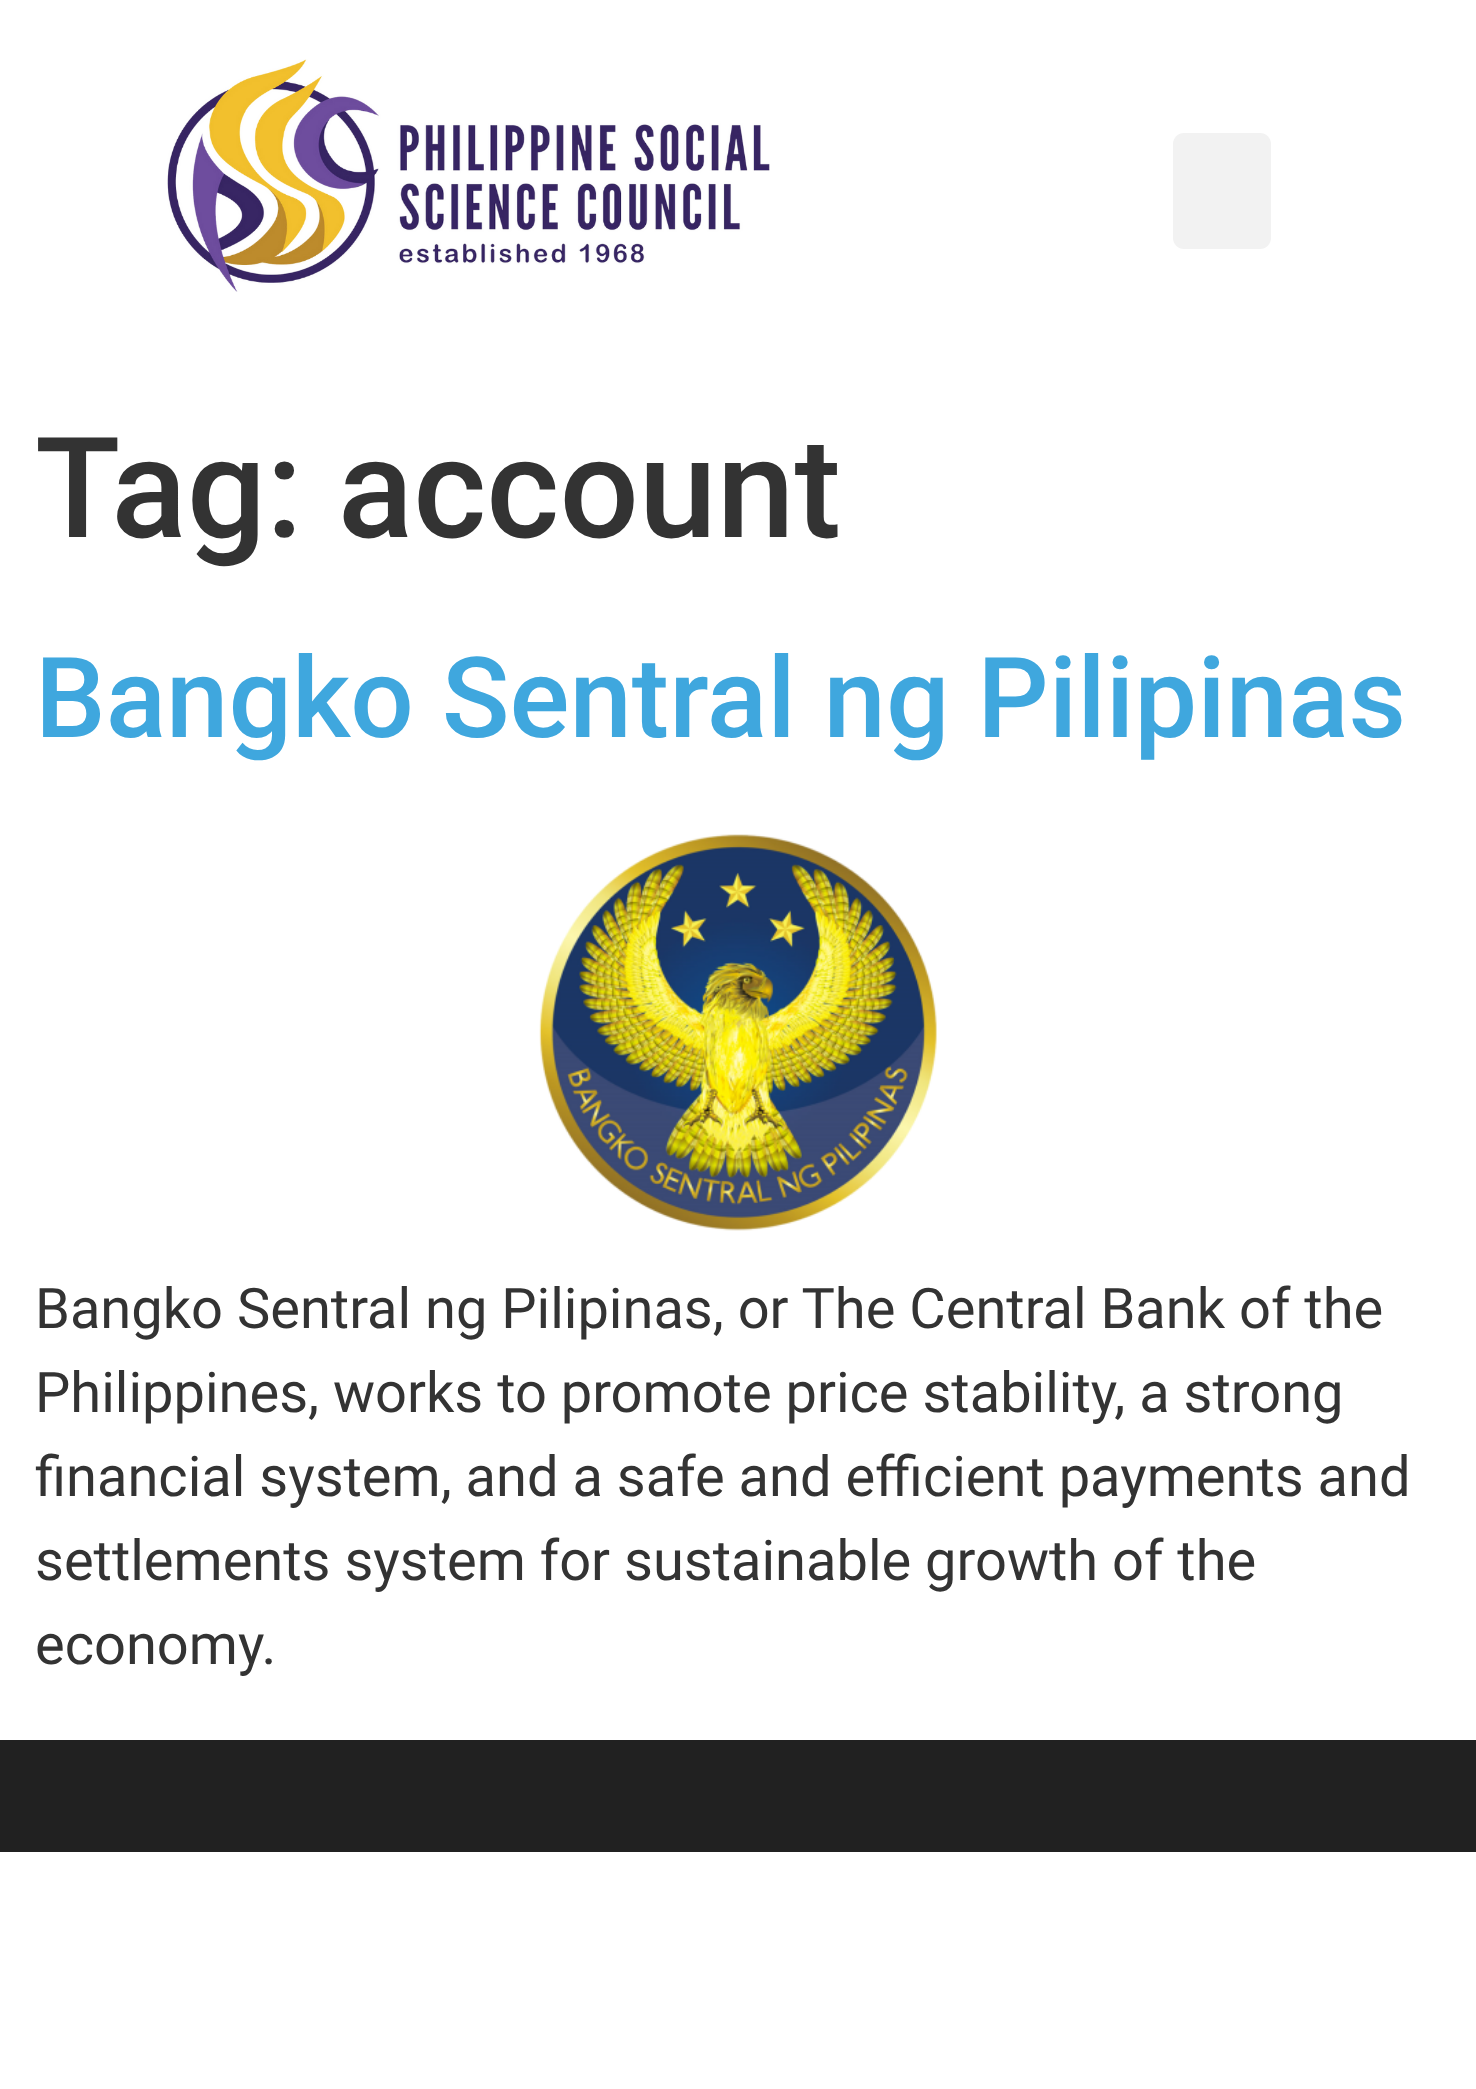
<svg xmlns="http://www.w3.org/2000/svg" width="1476" height="2089" viewBox="0 0 1476 2089">
  <rect width="100%" height="100%" fill="#fff"/>
  <image x="167" y="59" width="603" height="233" href="img/1.png"/>
  <rect x="1173" y="133" width="98" height="116" rx="11" fill="#f2f2f2"/>
  <image x="539" y="834" width="398" height="397" href="img/2.png"/>
  <path d="M0 1740h1476v112H0z" fill="#212121"/>
  <text x="35" y="537" font-family="Roboto" font-size="140" font-weight="500" fill="#333">Tag: account</text>
  <text x="35" y="737" font-family="Roboto" font-size="112" font-weight="500" fill="#3fa7de">Bangko Sentral ng Pilipinas</text>
  <g font-family="Roboto" font-size="56" fill="#333">
    <text x="35" y="1328">Bangko Sentral ng Pilipinas, or The Central Bank of the</text>
    <text x="35" y="1412">Philippines, works to promote price stability, a strong</text>
    <text x="35" y="1496">financial system, and a safe and efficient payments and</text>
    <text x="35" y="1580">settlements system for sustainable growth of the</text>
    <text x="35" y="1664">economy.</text>
  </g>
</svg>
